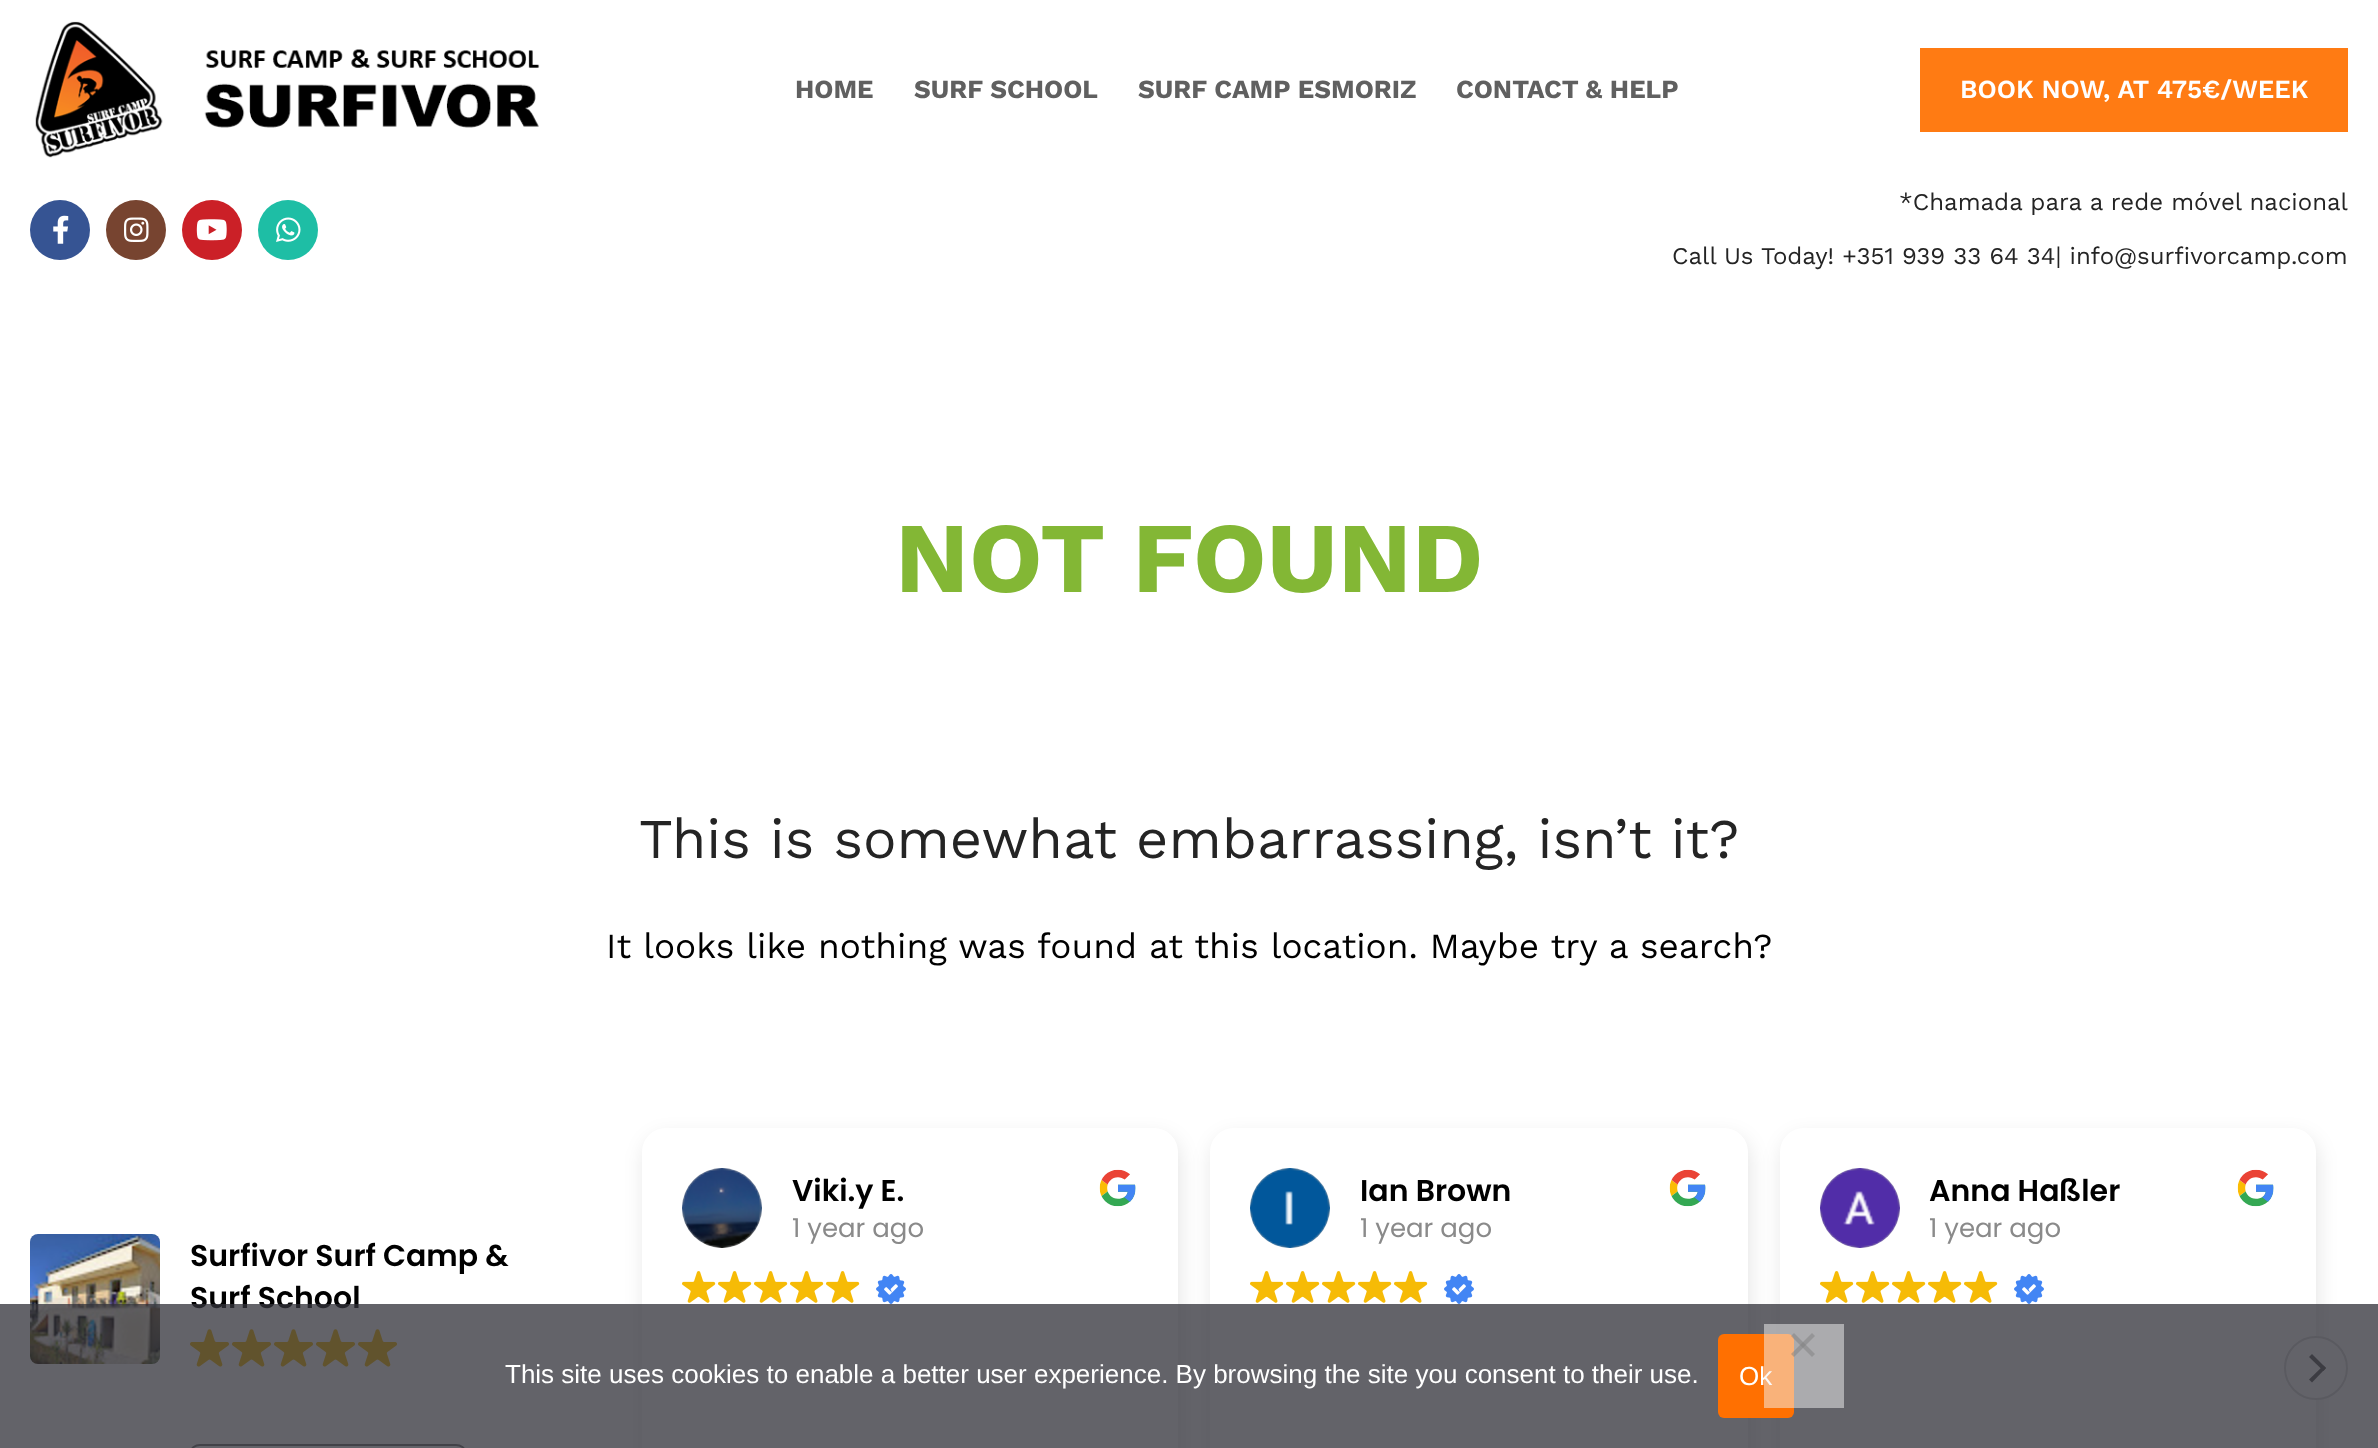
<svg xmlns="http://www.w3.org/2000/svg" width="2378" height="1448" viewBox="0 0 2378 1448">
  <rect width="100%" height="100%" fill="#fff"/>
  <image x="35" y="21" width="505" height="137" href="img/1.png"/>
  <path d="M1920 48h428v84H1920z" fill="#ff7b13"/>
  <circle cx="60" cy="230" r="30" fill="#365493"/>
  <image x="53" y="215" width="16" height="29" href="img/2.png"/>
  <circle cx="136" cy="230" r="30" fill="#774430"/>
  <image x="124" y="217" width="25" height="25" href="img/3.png"/>
  <circle cx="212" cy="230" r="30" fill="#cb2027"/>
  <image x="196" y="219" width="31" height="22" href="img/4.png"/>
  <circle cx="288" cy="230" r="30" fill="#1ebea5"/>
  <image x="276" y="217" width="25" height="25" href="img/5.png"/>
  <rect x="644" y="1136" width="536" height="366" rx="24" fill="#0000001a" filter="blur(10px)"/>
  <rect x="642" y="1128" width="536" height="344" rx="24" fill="#fff"/>
  <image x="682" y="1168" width="80" height="80" href="img/6.png"/>
  <image x="1099" y="1169" width="37" height="38" href="img/7.png"/>
  <image x="682" y="1271" width="34" height="32" href="img/8.png"/>
  <image x="718" y="1271" width="34" height="32" href="img/8.png"/>
  <image x="754" y="1271" width="34" height="32" href="img/8.png"/>
  <image x="790" y="1271" width="34" height="32" href="img/8.png"/>
  <image x="826" y="1271" width="34" height="32" href="img/8.png"/>
  <image x="876" y="1274" width="30" height="30" href="img/9.png"/>
  <rect x="1212" y="1136" width="538" height="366" rx="24" fill="#0000001a" filter="blur(10px)"/>
  <rect x="1210" y="1128" width="538" height="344" rx="24" fill="#fff"/>
  <image x="1250" y="1168" width="80" height="80" href="img/10.png"/>
  <image x="1669" y="1169" width="37" height="38" href="img/7.png"/>
  <image x="1250" y="1271" width="34" height="32" href="img/8.png"/>
  <image x="1286" y="1271" width="34" height="32" href="img/8.png"/>
  <image x="1322" y="1271" width="34" height="32" href="img/8.png"/>
  <image x="1358" y="1271" width="34" height="32" href="img/8.png"/>
  <image x="1394" y="1271" width="34" height="32" href="img/8.png"/>
  <image x="1444" y="1274" width="30" height="30" href="img/9.png"/>
  <rect x="1782" y="1136" width="536" height="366" rx="24" fill="#0000001a" filter="blur(10px)"/>
  <rect x="1780" y="1128" width="536" height="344" rx="24" fill="#fff"/>
  <image x="1820" y="1168" width="80" height="80" href="img/11.png"/>
  <image x="2237" y="1169" width="37" height="38" href="img/7.png"/>
  <image x="1820" y="1271" width="34" height="32" href="img/8.png"/>
  <image x="1856" y="1271" width="34" height="32" href="img/8.png"/>
  <image x="1892" y="1271" width="34" height="32" href="img/8.png"/>
  <image x="1928" y="1271" width="34" height="32" href="img/8.png"/>
  <image x="1964" y="1271" width="34" height="32" href="img/8.png"/>
  <image x="2014" y="1274" width="30" height="30" href="img/9.png"/>
  <circle cx="2316" cy="1368" r="31" fill="#fff" stroke="#d9d9d9" stroke-width="2"/>
  <path d="M2323.5 1371L2309 1357L2312 1354L2326 1368Z" fill="#5e5e5e"/>
  <path d="M2312 1382.5L2309 1379.5L2323.5 1365.5L2326 1368Z" fill="#5e5e5e"/>
  <image x="30" y="1234" width="130" height="130" href="img/12.png"/>
  <image x="190" y="1329" width="39" height="38" href="img/13.png"/>
  <image x="232" y="1329" width="39" height="38" href="img/13.png"/>
  <image x="274" y="1329" width="39" height="38" href="img/13.png"/>
  <image x="316" y="1329" width="39" height="38" href="img/13.png"/>
  <image x="358" y="1329" width="39" height="38" href="img/13.png"/>
  <rect x="191" y="1445" width="274" height="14" rx="9" fill="none" stroke="#767676" stroke-width="2"/>
  <g font-family="Work Sans" font-size="26" font-weight="bold" fill="#606060">
    <text x="795" y="98">HOME</text>
    <text x="914" y="98">SURF SCHOOL</text>
    <text x="1138" y="98">SURF CAMP ESMORIZ</text>
    <text x="1456" y="98">CONTACT &amp; HELP</text>
  </g>
  <text x="1960" y="98" font-family="Work Sans" font-size="26" font-weight="600" fill="#fff">BOOK NOW, AT 475€/WEEK</text>
  <g font-family="Work Sans" font-size="24" fill="#242424">
    <text x="1899" y="210">*Chamada para a rede móvel nacional</text>
    <text x="1672" y="264">Call Us Today! +351 939 33 64 34| info@surfivorcamp.com</text>
  </g>
  <text x="895" y="592" font-family="Work Sans" font-size="100" font-weight="bold" fill="#83b735">NOT FOUND</text>
  <text x="639" y="858" font-family="Work Sans" font-size="56" fill="#242424">This is somewhat embarrassing, isn’t it?</text>
  <text x="606" y="958" font-family="Work Sans" font-size="35.2" fill="#000">It looks like nothing was found at this location. Maybe try a search?</text>
  <text x="792" y="1201" font-family="Poppins" font-size="30" font-weight="600" fill="#000">Viki.y E.</text>
  <text x="792" y="1237" font-family="Poppins" font-size="26" fill="#8a8a8a">1 year ago</text>
  <text x="1360" y="1201" font-family="Poppins" font-size="30" font-weight="600" fill="#000">Ian Brown</text>
  <text x="1360" y="1237" font-family="Poppins" font-size="26" fill="#8a8a8a">1 year ago</text>
  <text x="1929" y="1201" font-family="Poppins" font-size="30" font-weight="600" fill="#000">Anna Haßler</text>
  <text x="1929" y="1237" font-family="Poppins" font-size="26" fill="#8a8a8a">1 year ago</text>
  <g font-family="Poppins" font-size="30" font-weight="600" fill="#000">
    <text x="190" y="1266">Surfivor Surf Camp &amp;</text>
    <text x="190" y="1308">Surf School</text>
  </g>
  <path d="M0 1304h2378v144H0z" fill="#32323ac2"/>
  <text x="505" y="1383" font-family="Liberation Sans" font-size="26" fill="#fff">This site uses cookies to enable a better user experience. By browsing the site you consent to their use.</text>
  <rect x="1718" y="1334" width="76" height="84" rx="6" fill="#ff7001"/>
  <text x="1739" y="1385" font-family="Liberation Sans" font-size="26" fill="#fff">Ok</text>
  <path d="M1764 1324h80v84H1764z" fill="#f3f3f380"/>
  <path d="M1812 1333L1815 1336L1794 1357L1791 1354Z" fill="#80808080"/>
  <path d="M1791 1336L1794 1333L1815 1354L1812 1357Z" fill="#80808080"/>
</svg>
